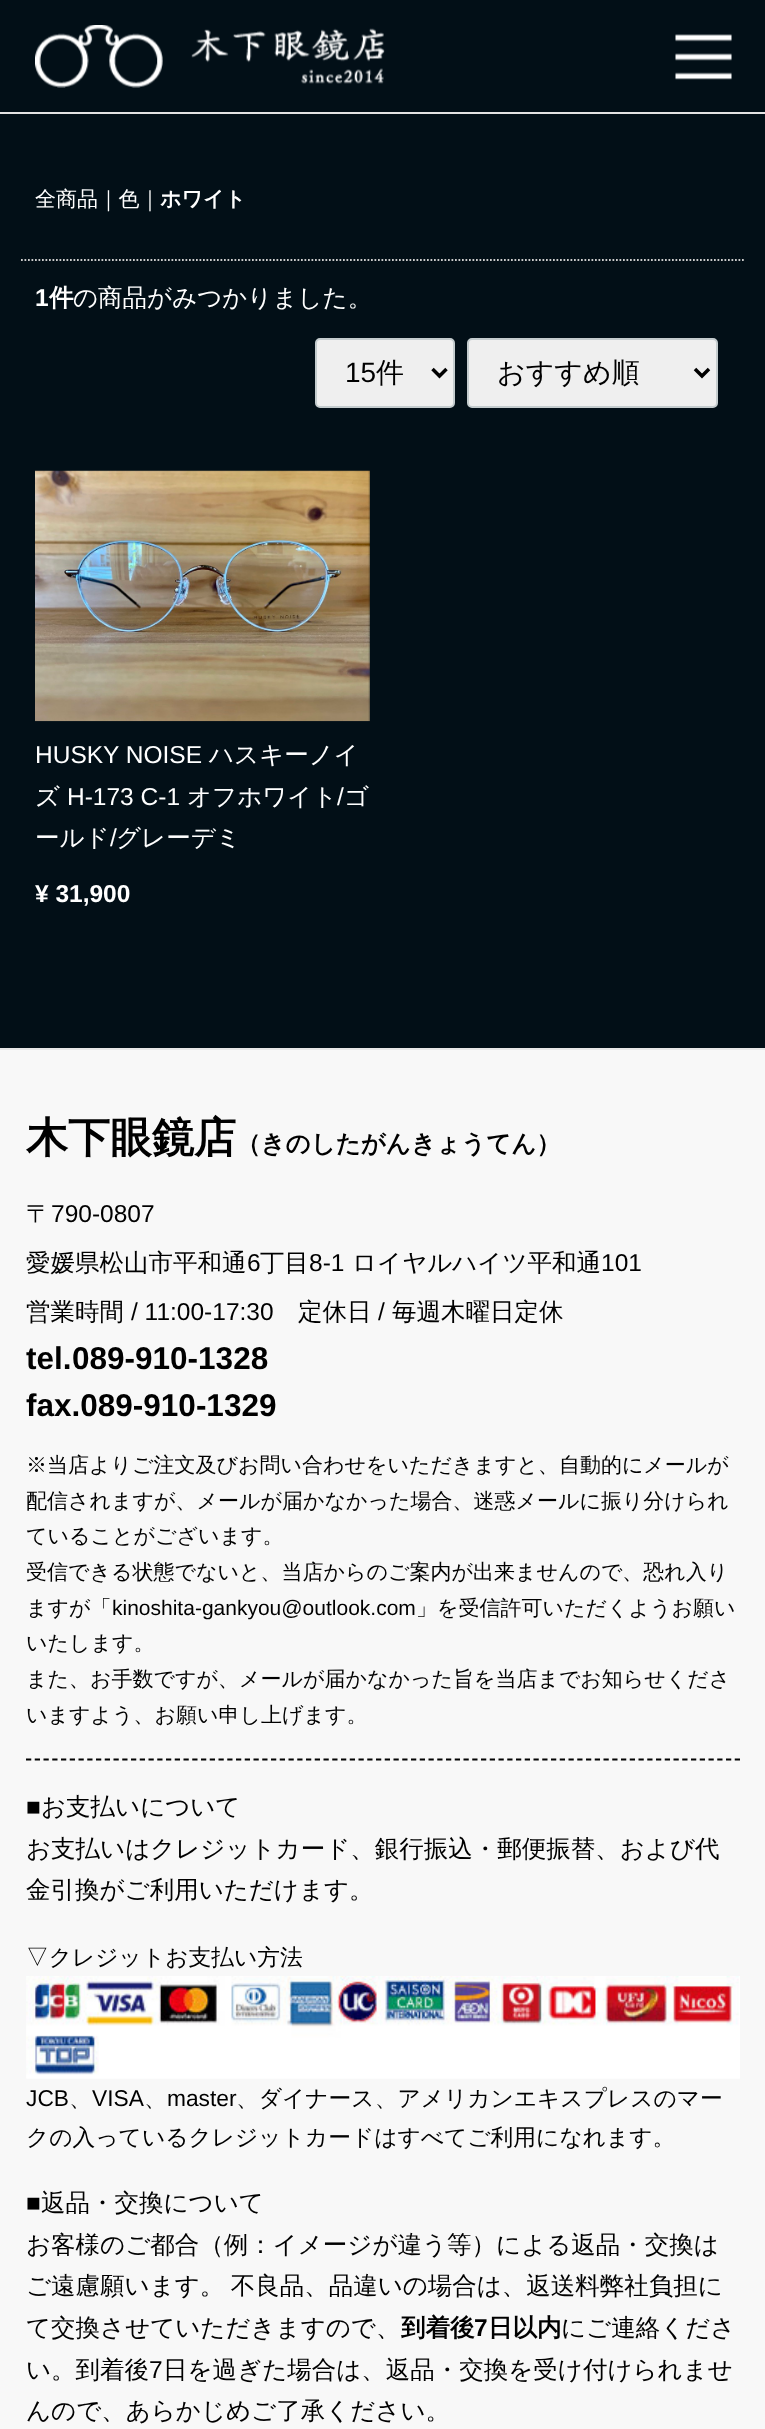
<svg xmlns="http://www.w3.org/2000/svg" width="765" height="2429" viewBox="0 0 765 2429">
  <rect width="100%" height="100%" fill="#020f17"/>
  <path d="M0 112h765v2H0z" fill="#e3e3e3"/>
  <image x="35" y="25" width="350" height="63" href="img/1.png"/>
  <image x="675" y="34" width="57" height="46" href="img/2.png"/>
  <path d="M21 260H745.5" fill="none" stroke="#ccc" stroke-width="1.8" stroke-dasharray="1.75 1.75"/>
  <rect x="316" y="339" width="138" height="68" rx="4" fill="#efefef" stroke="#c4ccce" stroke-width="2"/>
  <path d="M432.5 369L439.5 376L446.5 369" fill="none" stroke="#000" stroke-width="3.5"/>
  <rect x="468" y="339" width="249" height="68" rx="4" fill="#efefef" stroke="#c4ccce" stroke-width="2"/>
  <path d="M695 369L702 376L709 369" fill="none" stroke="#000" stroke-width="3.5"/>
  <image x="35" y="470" width="335" height="252" href="img/3.png"/>
  <path d="M0 1050h765v1379H0z" fill="#f8f8f8"/>
  <path d="M0 1048h765v2H0z" fill="#e8e8e8"/>
  <path d="M26 1759.5H740" fill="none" stroke="#030303" stroke-width="1.8" stroke-dasharray="5.25 3.5"/>
  <image x="26" y="1976" width="714" height="103" href="img/4.png"/>
  <text x="35" y="206" font-family="WenQuanYi Zen Hei" font-size="21" font-weight="500" fill="#fff">全商品｜色｜</text>
  <text x="160" y="206" font-family="WenQuanYi Zen Hei" font-size="21" font-weight="bold" fill="#fff">ホワイト</text>
  <text x="35" y="306" font-family="Liberation Sans" font-size="24.5" font-weight="bold" fill="#fff">1</text>
  <text x="49" y="306" font-family="WenQuanYi Zen Hei" font-size="24.5" font-weight="bold" fill="#fff">件</text>
  <text x="73" y="306" font-family="WenQuanYi Zen Hei" font-size="24.5" font-weight="500" fill="#fff">の商品がみつかりました。</text>
  <text x="345" y="382" font-family="Liberation Sans" font-size="28" fill="#000">15</text>
  <g font-family="WenQuanYi Zen Hei" font-size="28" font-weight="500" fill="#000">
    <text x="376" y="382">件</text>
    <text x="497" y="382">おすすめ順</text>
  </g>
  <text x="35" y="763" font-family="Liberation Sans" font-size="24.5" fill="#fff">HUSKY NOISE</text>
  <g font-family="WenQuanYi Zen Hei" font-size="24.5" font-weight="500" fill="#fff">
    <text x="209" y="763">ハスキーノイ</text>
    <text x="35" y="805">ズ</text>
  </g>
  <text x="67" y="805" font-family="Liberation Sans" font-size="24.5" fill="#fff">H-173 C-1</text>
  <text x="187" y="805" font-family="WenQuanYi Zen Hei" font-size="24.5" font-weight="500" fill="#fff">オフホワイト</text>
  <text x="337" y="805" font-family="Liberation Sans" font-size="24.5" fill="#fff">/</text>
  <g font-family="WenQuanYi Zen Hei" font-size="24.5" font-weight="500" fill="#fff">
    <text x="344" y="805">ゴ</text>
    <text x="35" y="846">ールド</text>
  </g>
  <text x="110" y="846" font-family="Liberation Sans" font-size="24.5" fill="#fff">/</text>
  <text x="116" y="846" font-family="WenQuanYi Zen Hei" font-size="24.5" font-weight="500" fill="#fff">グレーデミ</text>
  <text x="35" y="902" font-family="Liberation Sans" font-size="24.5" font-weight="bold" fill="#fff">¥ 31,900</text>
  <text x="26" y="1152" font-family="WenQuanYi Zen Hei" font-size="42" font-weight="bold" fill="#000">木下眼鏡店</text>
  <text x="236" y="1152" font-family="WenQuanYi Zen Hei" font-size="24.5" font-weight="bold" fill="#000">（きのしたがんきょうてん）</text>
  <text x="26" y="1222" font-family="WenQuanYi Zen Hei" font-size="24.5" font-weight="500" fill="#000">〒</text>
  <text x="51" y="1222" font-family="Liberation Sans" font-size="24.5" fill="#000">790-0807</text>
  <text x="26" y="1271" font-family="WenQuanYi Zen Hei" font-size="24.5" font-weight="500" fill="#000">愛媛県松山市平和通</text>
  <text x="247" y="1271" font-family="Liberation Sans" font-size="24.5" fill="#000">6</text>
  <text x="260" y="1271" font-family="WenQuanYi Zen Hei" font-size="24.5" font-weight="500" fill="#000">丁目</text>
  <text x="309" y="1271" font-family="Liberation Sans" font-size="24.5" fill="#000">8-1</text>
  <text x="352" y="1271" font-family="WenQuanYi Zen Hei" font-size="24.5" font-weight="500" fill="#000">ロイヤルハイツ平和通</text>
  <text x="601" y="1271" font-family="Liberation Sans" font-size="24.5" fill="#000">101</text>
  <text x="26" y="1320" font-family="WenQuanYi Zen Hei" font-size="24.5" font-weight="500" fill="#000">営業時間</text>
  <text x="131" y="1320" font-family="Liberation Sans" font-size="24.5" fill="#000">/ 11:00-17:30</text>
  <text x="298" y="1320" font-family="WenQuanYi Zen Hei" font-size="24.5" font-weight="500" fill="#000">定休日</text>
  <text x="378" y="1320" font-family="Liberation Sans" font-size="24.5" fill="#000">/</text>
  <text x="392" y="1320" font-family="WenQuanYi Zen Hei" font-size="24.5" font-weight="500" fill="#000">毎週木曜日定休</text>
  <g font-family="Liberation Sans" font-size="31.5" font-weight="bold" fill="#000">
    <text x="26" y="1369">tel.</text>
    <text x="72" y="1369">089-910-1328</text>
    <text x="26" y="1416">fax.089-910-1329</text>
  </g>
  <g font-family="WenQuanYi Zen Hei" font-size="21" font-weight="500" fill="#000">
    <text x="26" y="1472">※当店よりご注文及びお問い合わせをいただきますと、自動的にメールが</text>
    <text x="26" y="1508">配信されますが、メールが届かなかった場合、迷惑メールに振り分けられ</text>
    <text x="26" y="1543">ていることがございます。</text>
    <text x="26" y="1579">受信できる状態でないと、当店からのご案内が出来ませんので、恐れ入り</text>
    <text x="26" y="1615">ますが「</text>
  </g>
  <text x="112" y="1615" font-family="Liberation Sans" font-size="21" fill="#000">kinoshita-gankyou@outlook.com</text>
  <g font-family="WenQuanYi Zen Hei" font-size="21" font-weight="500" fill="#000">
    <text x="416" y="1615">」を受信許可いただくようお願い</text>
    <text x="26" y="1650">いたします。</text>
    <text x="26" y="1686">また、お手数ですが、メールが届かなかった旨を当店までお知らせくださ</text>
    <text x="26" y="1722">いますよう、お願い申し上げます。</text>
  </g>
  <text x="26" y="1815" font-family="Liberation Sans" font-size="24.5" fill="#000">■</text>
  <g font-family="WenQuanYi Zen Hei" font-size="24.5" font-weight="500" fill="#000">
    <text x="41" y="1815">お支払いについて</text>
    <text x="26" y="1857">お支払いはクレジットカード、銀行振込・郵便振替、および代</text>
    <text x="26" y="1898">金引換がご利用いただけます。</text>
  </g>
  <text x="26" y="1965" font-family="WenQuanYi Zen Hei" font-size="22.75" font-weight="500" fill="#000">▽クレジットお支払い方法</text>
  <text x="26" y="2106" font-family="Liberation Sans" font-size="22.75" fill="#000">JCB</text>
  <text x="69" y="2106" font-family="WenQuanYi Zen Hei" font-size="22.75" font-weight="500" fill="#000">、</text>
  <text x="92" y="2106" font-family="Liberation Sans" font-size="22.75" fill="#000">VISA</text>
  <text x="144" y="2106" font-family="WenQuanYi Zen Hei" font-size="22.75" font-weight="500" fill="#000">、</text>
  <text x="167" y="2106" font-family="Liberation Sans" font-size="22.75" fill="#000">master</text>
  <g font-family="WenQuanYi Zen Hei" font-size="22.75" font-weight="500" fill="#000">
    <text x="236" y="2106">、ダイナース、アメリカンエキスプレスのマー</text>
    <text x="26" y="2145">クの入っているクレジットカードはすべてご利用になれます。</text>
  </g>
  <text x="26" y="2211" font-family="Liberation Sans" font-size="24.5" fill="#000">■</text>
  <g font-family="WenQuanYi Zen Hei" font-size="24.5" font-weight="500" fill="#000">
    <text x="41" y="2211">返品・交換について</text>
    <text x="26" y="2253">お客様のご都合（例：イメージが違う等）による返品・交換は</text>
    <text x="26" y="2294" word-spacing="-1">ご遠慮願います。 不良品、品違いの場合は、返送料弊社負担に</text>
    <text x="26" y="2336">て交換させていただきますので、</text>
  </g>
  <text x="401" y="2336" font-family="WenQuanYi Zen Hei" font-size="24.5" font-weight="bold" fill="#000">到着後</text>
  <text x="474" y="2336" font-family="Liberation Sans" font-size="24.5" font-weight="bold" fill="#000">7</text>
  <text x="488" y="2336" font-family="WenQuanYi Zen Hei" font-size="24.5" font-weight="bold" fill="#000">日以内</text>
  <g font-family="WenQuanYi Zen Hei" font-size="24.5" font-weight="500" fill="#000">
    <text x="561" y="2336">にご連絡くださ</text>
    <text x="26" y="2378">い。到着後</text>
  </g>
  <text x="149" y="2378" font-family="Liberation Sans" font-size="24.5" fill="#000">7</text>
  <g font-family="WenQuanYi Zen Hei" font-size="24.5" font-weight="500" fill="#000">
    <text x="163" y="2378">日を過ぎた場合は、返品・交換を受け付けられませ</text>
    <text x="26" y="2419">んので、あらかじめご了承ください。</text>
  </g>
</svg>
